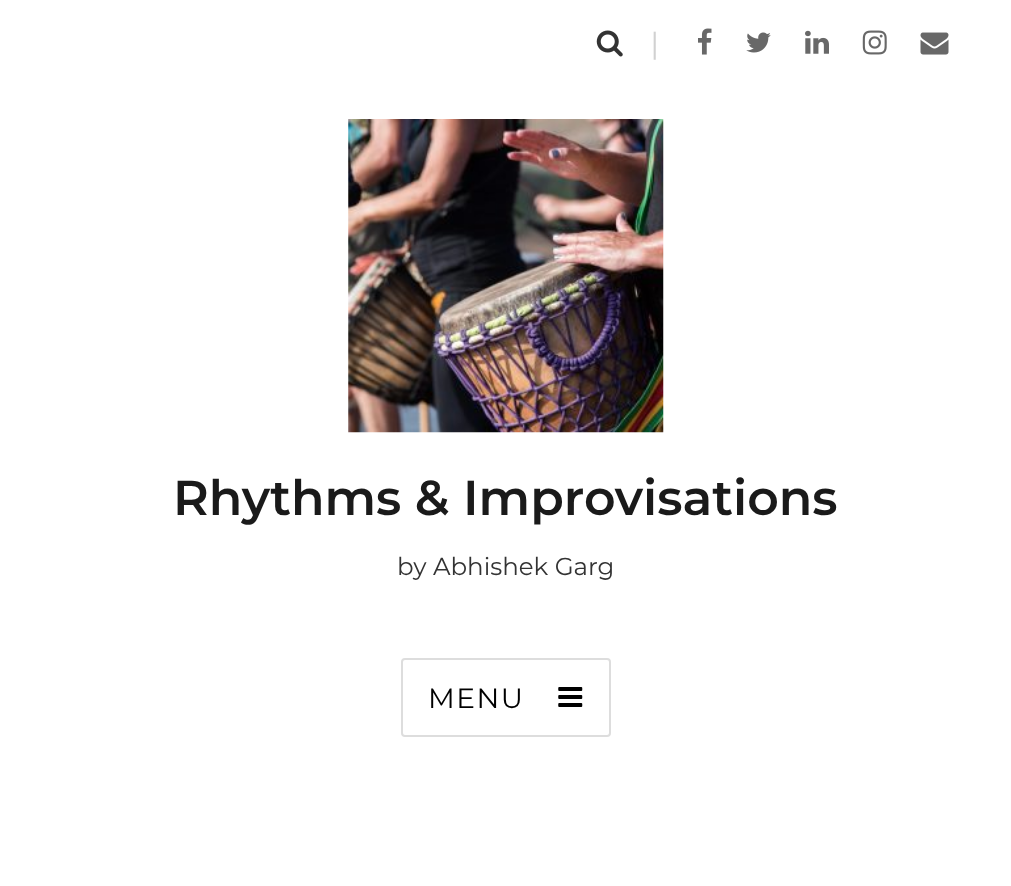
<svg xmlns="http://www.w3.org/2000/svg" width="1011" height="886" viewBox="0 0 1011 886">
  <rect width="100%" height="100%" fill="#fff"/>
  <image x="596" y="30" width="27" height="27" href="img/1.png"/>
  <image x="698" y="28" width="14" height="27" href="img/2.png"/>
  <image x="746" y="32" width="25" height="21" href="img/3.png"/>
  <image x="805" y="30" width="24" height="24" href="img/4.png"/>
  <image x="862" y="30" width="25" height="25" href="img/5.png"/>
  <image x="920" y="32" width="29" height="23" href="img/6.png"/>
  <image x="348" y="119" width="316" height="314" href="img/7.png"/>
  <rect x="402" y="659" width="208" height="77" rx="3" fill="none" stroke="#ddd" stroke-width="2"/>
  <image x="558" y="687" width="25" height="20" href="img/8.png"/>
  <text x="647" y="53" font-family="Noto Sans" font-size="28" fill="#d1d1d1">|</text>
  <text x="173" y="515" font-family="Montserrat" font-size="49" font-weight="600" fill="#1a1a1a">Rhythms &amp; Improvisations</text>
  <text x="397" y="575" font-family="Montserrat" font-size="24.5" fill="#333">by Abhishek Garg</text>
  <text x="428" y="708" font-family="Montserrat" font-size="28" letter-spacing="1.5" fill="#000">MENU</text>
</svg>
